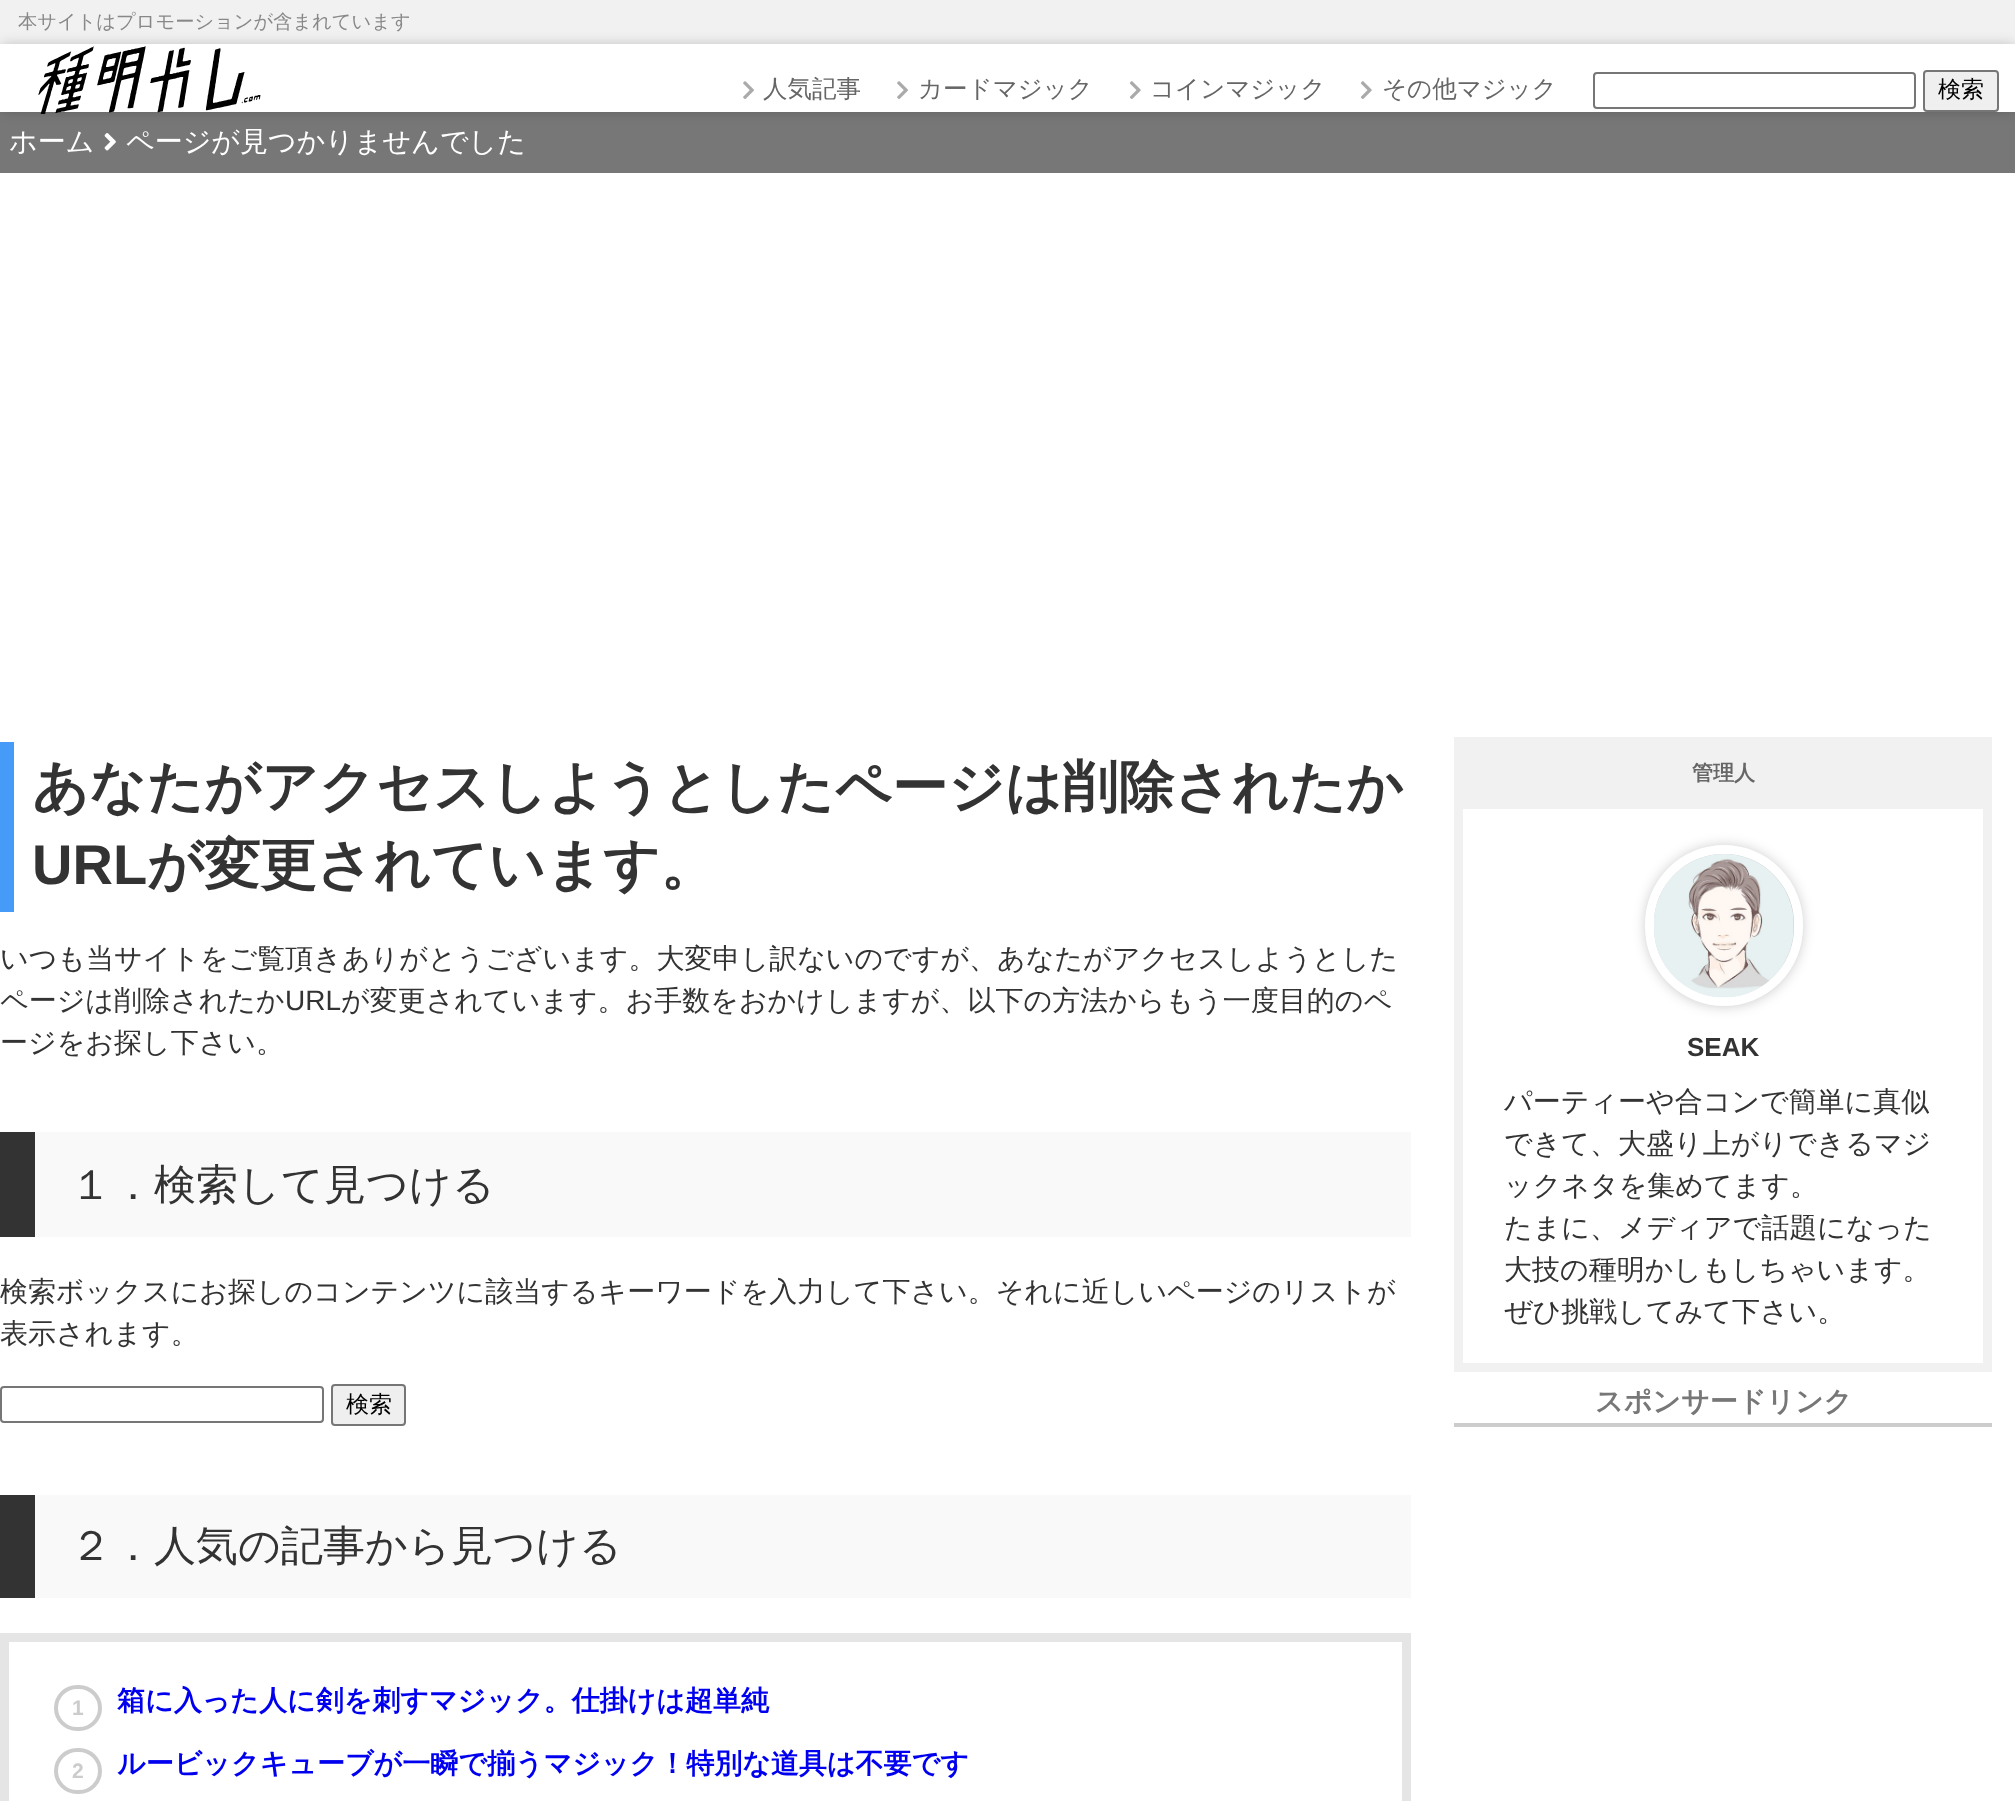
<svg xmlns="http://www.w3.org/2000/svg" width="2015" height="1801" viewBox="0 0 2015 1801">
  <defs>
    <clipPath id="clip1"><path d="M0 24H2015V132H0ZM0 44H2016V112H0Z" clip-rule="evenodd"/></clipPath>
  </defs>
  <rect width="100%" height="100%" fill="#fff"/>
  <path d="M0 0h2015v44H0z" fill="#f1f1f1"/>
  <path d="M0 112h2015v61H0z" fill="#777"/>
  <g clip-path="url(#clip1)">
    <path d="M2 46h2012v64H2z" fill="#00000040" filter="blur(7px)"/>
  </g>
  <image x="38" y="46" width="223" height="68" href="img/1.png"/>
  <image x="743" y="81" width="11" height="18" href="img/2.png"/>
  <image x="897" y="81" width="11" height="18" href="img/2.png"/>
  <image x="1129" y="81" width="12" height="18" href="img/3.png"/>
  <image x="1360" y="81" width="12" height="18" href="img/3.png"/>
  <rect x="1594" y="73" width="321" height="35" rx="3" fill="none" stroke="#767676" stroke-width="2"/>
  <rect x="1924" y="71" width="74" height="40" rx="3" fill="#efefef" stroke="#767676" stroke-width="2"/>
  <image x="104" y="133" width="12" height="18" href="img/4.png"/>
  <path d="M0 742h14v170H0z" fill="#469af8"/>
  <path d="M35 1132h1376v105H35z" fill="#f9f9f9"/>
  <path d="M0 1132h35v105H0z" fill="#333"/>
  <rect x="1" y="1387" width="322" height="35" rx="3" fill="none" stroke="#767676" stroke-width="2"/>
  <rect x="332" y="1385" width="73" height="40" rx="3" fill="#efefef" stroke="#767676" stroke-width="2"/>
  <path d="M35 1495h1376v103H35z" fill="#f9f9f9"/>
  <path d="M0 1495h35v103H0z" fill="#333"/>
  <path d="M4.5 1637.5h1402v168H4.5z" fill="none" stroke="#e5e5e5" stroke-width="9"/>
  <rect x="56" y="1687" width="44" height="42" rx="21" fill="none" stroke="#ccc" stroke-width="4"/>
  <rect x="56" y="1750" width="44" height="42" rx="21" fill="none" stroke="#ccc" stroke-width="4"/>
  <path d="M1458.5 741.5h529v626H1458.5z" fill="none" stroke="#f1f1f1" stroke-width="9"/>
  <path d="M1463 746h520v63H1463z" fill="#f1f1f1"/>
  <rect x="1647" y="847" width="154" height="158" rx="77" fill="#00000040" filter="blur(7px)"/>
  <rect x="1649.5" y="849.5" width="149" height="152" rx="74.5" fill="none" stroke="#fff" stroke-width="9"/>
  <image x="1654" y="854" width="140" height="144" href="img/5.png"/>
  <path d="M1454 1423h538v4H1454z" fill="#ccc"/>
  <text x="18" y="28" font-family="WenQuanYi Zen Hei" font-size="19.25" font-weight="500" fill="#888">本サイトはプロモーションが含まれています</text>
  <g font-family="WenQuanYi Zen Hei" font-size="24.5" font-weight="500" fill="#666">
    <text x="763" y="97">人気記事</text>
    <text x="918" y="97">カードマジック</text>
    <text x="1150" y="97">コインマジック</text>
    <text x="1382" y="97">その他マジック</text>
  </g>
  <text x="1938" y="97" font-family="WenQuanYi Zen Hei" font-size="23" font-weight="500" fill="#000">検索</text>
  <g font-family="WenQuanYi Zen Hei" font-size="28" font-weight="500" fill="#fff">
    <text x="9" y="151">ホーム</text>
    <text x="126" y="151">ページが見つかりませんでした</text>
  </g>
  <text x="32" y="806" font-family="WenQuanYi Zen Hei" font-size="56" font-weight="bold" fill="#333">あなたがアクセスしようとしたページは削除されたか</text>
  <text x="32" y="884" font-family="Liberation Sans" font-size="56" font-weight="bold" fill="#333">URL</text>
  <text x="147" y="884" font-family="WenQuanYi Zen Hei" font-size="56" font-weight="bold" fill="#333">が変更されています。</text>
  <g font-family="WenQuanYi Zen Hei" font-size="28" font-weight="500" fill="#333">
    <text x="0" y="968">いつも当サイトをご覧頂きありがとうございます。大変申し訳ないのですが、あなたがアクセスしようとした</text>
    <text x="0" y="1010">ページは削除されたか</text>
  </g>
  <text x="285" y="1010" font-family="Liberation Sans" font-size="28" fill="#333">URL</text>
  <g font-family="WenQuanYi Zen Hei" font-size="28" font-weight="500" fill="#333">
    <text x="341" y="1010">が変更されています。お手数をおかけしますが、以下の方法からもう一度目的のペ</text>
    <text x="0" y="1052">ージをお探し下さい。</text>
  </g>
  <text x="70" y="1199" font-family="WenQuanYi Zen Hei" font-size="42" font-weight="500" fill="#333">１．検索して見つける</text>
  <g font-family="WenQuanYi Zen Hei" font-size="28" font-weight="500" fill="#333">
    <text x="0" y="1301">検索ボックスにお探しのコンテンツに該当するキーワードを入力して下さい。それに近しいページのリストが</text>
    <text x="0" y="1343">表示されます。</text>
  </g>
  <text x="346" y="1412" font-family="WenQuanYi Zen Hei" font-size="23" font-weight="500" fill="#000">検索</text>
  <text x="70" y="1560" font-family="WenQuanYi Zen Hei" font-size="42" font-weight="500" fill="#333">２．人気の記事から見つける</text>
  <text x="72" y="1715" font-family="Liberation Sans" font-size="21" font-weight="bold" fill="#ccc">1</text>
  <text x="117" y="1710" font-family="WenQuanYi Zen Hei" font-size="28" font-weight="bold" fill="#00e">箱に入った人に剣を刺すマジック。仕掛けは超単純</text>
  <text x="72" y="1778" font-family="Liberation Sans" font-size="21" font-weight="bold" fill="#ccc">2</text>
  <text x="117" y="1773" font-family="WenQuanYi Zen Hei" font-size="28" font-weight="bold" fill="#00e">ルービックキューブが一瞬で揃うマジック！特別な道具は不要です</text>
  <text x="1692" y="780" font-family="WenQuanYi Zen Hei" font-size="21" font-weight="bold" fill="#666">管理人</text>
  <text x="1687" y="1056" font-family="Liberation Sans" font-size="26" font-weight="bold" fill="#333">SEAK</text>
  <g font-family="WenQuanYi Zen Hei" font-size="28" font-weight="500" fill="#333">
    <text x="1504" y="1111">パーティーや合コンで簡単に真似</text>
    <text x="1504" y="1153">できて、大盛り上がりできるマジ</text>
    <text x="1504" y="1195">ックネタを集めてます。</text>
    <text x="1504" y="1237">たまに、メディアで話題になった</text>
    <text x="1504" y="1279">大技の種明かしもしちゃいます。</text>
    <text x="1504" y="1321">ぜひ挑戦してみて下さい。</text>
  </g>
  <text x="1595" y="1411" font-family="WenQuanYi Zen Hei" font-size="28" font-weight="bold" fill="#777">スポンサードリンク</text>
</svg>
